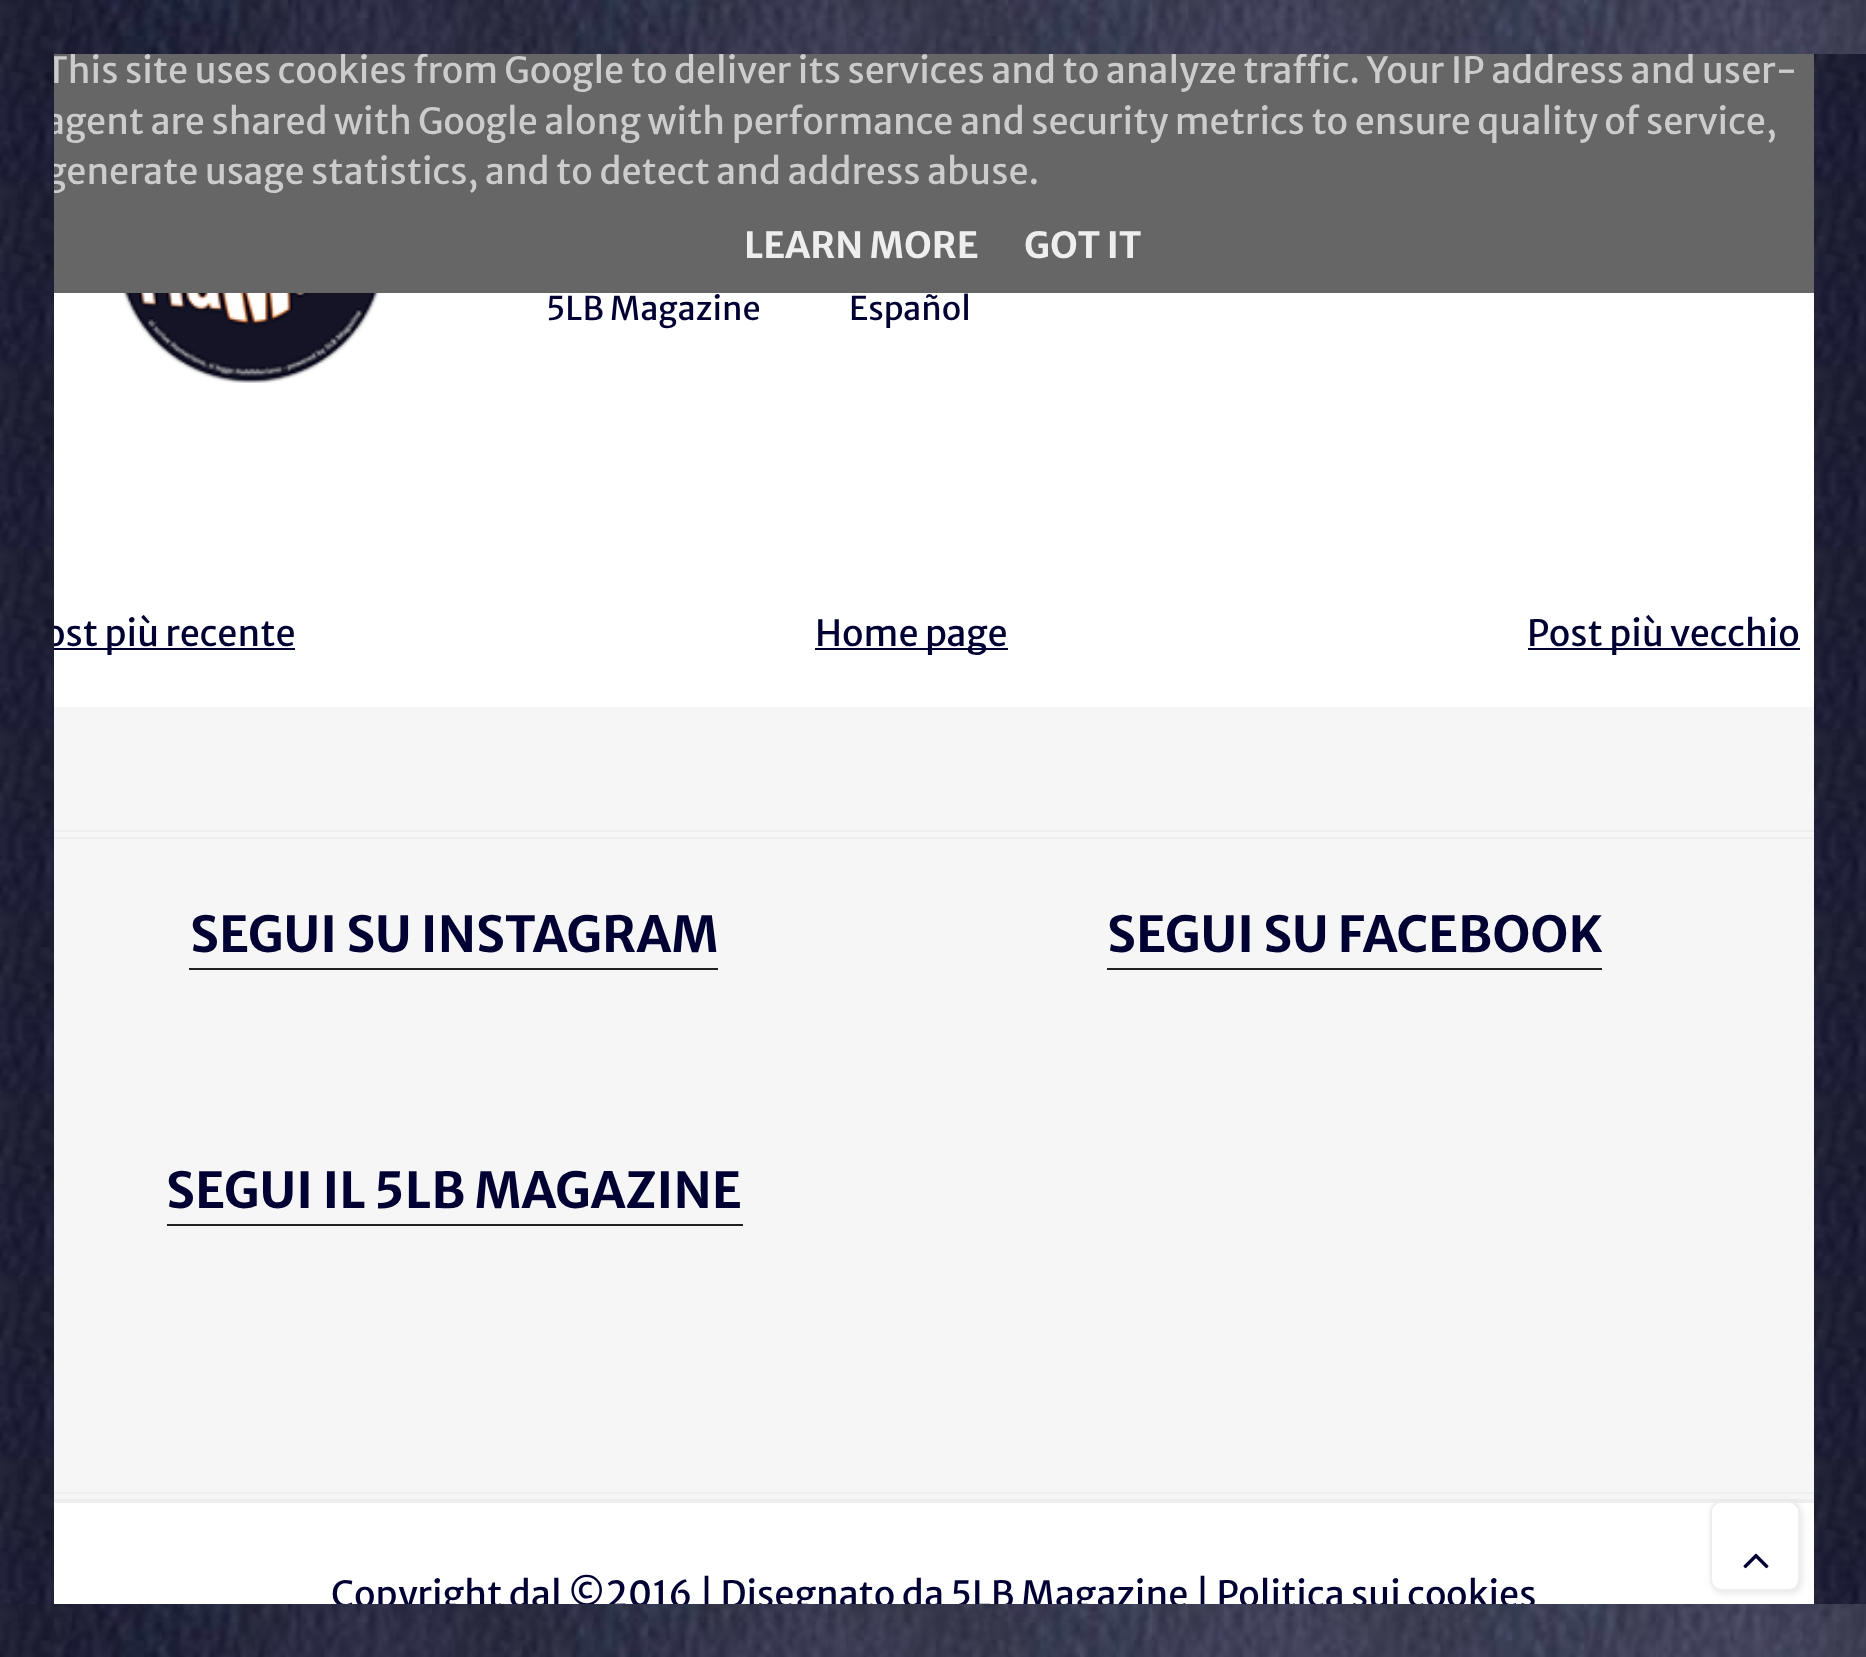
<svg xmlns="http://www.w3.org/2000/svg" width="1866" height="1657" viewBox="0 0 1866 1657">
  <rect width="100%" height="100%" fill="#fff"/>
  <path d="M54 54h1760v239H54z" fill="#666"/>
  <path d="M54 707h1760v792H54z" fill="#f6f6f6"/>
  <path d="M189 968h529v2H189z" fill="#212121"/>
  <path d="M1107 968h495v2H1107z" fill="#212121"/>
  <path d="M167 1224h576v2H167z" fill="#212121"/>
  <path d="M1 831h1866v669H1z" fill="none" stroke="#eee" stroke-width="2"/>
  <path d="M8 838h1852v655H8z" fill="none" stroke="#eee" stroke-width="2"/>
  <image x="1814" y="54" width="52" height="1550" href="img/3.png"/>
  <image x="121" y="293" width="260" height="90" href="img/4.png"/>
  <path d="M54 648h241v2H54z" fill="#003"/>
  <path d="M815 648h193v2H815z" fill="#003"/>
  <path d="M1528 648h272v2H1528z" fill="#003"/>
  <path d="M54 1501h1760v2H54z" fill="#eee"/>
  <rect x="1712" y="1503" width="90" height="90" rx="11" fill="#0000001a" filter="blur(3.5px)"/>
  <rect x="1711" y="1502" width="88" height="88" rx="10" fill="#fff" stroke="#eee" stroke-width="2"/>
  <image x="1743" y="1553" width="26" height="16" href="img/5.png"/>
  <text x="45" y="83" font-family="Merriweather Sans" font-size="36" fill="#ccc">This site uses cookies from Google to deliver its services and to analyze traffic. Your IP address and user-</text>
  <image x="54" y="0" width="1812" height="54" href="img/2.png"/>
  <g font-family="Merriweather Sans" font-size="36" fill="#ccc">
    <text x="45" y="134">agent are shared with Google along with performance and security metrics to ensure quality of service,</text>
    <text x="45" y="184">generate usage statistics, and to detect and address abuse.</text>
  </g>
  <g font-family="Merriweather Sans" font-size="36" font-weight="bold" fill="#eee">
    <text x="744" y="258">LEARN MORE</text>
    <text x="1024" y="258">GOT IT</text>
  </g>
  <g font-family="Merriweather Sans" font-size="32.5" fill="#003">
    <text x="546" y="320">5LB Magazine</text>
    <text x="849" y="320">Español</text>
  </g>
  <text x="44" y="646" font-family="Merriweather Sans" font-size="36" fill="#003">ost più recente</text>
  <image x="0" y="0" width="54" height="1604" href="img/1.png"/>
  <g font-family="Merriweather Sans" font-size="36" fill="#003">
    <text x="815" y="646">Home page</text>
    <text x="1527" y="646">Post più vecchio</text>
  </g>
  <g font-family="Merriweather Sans" font-size="49.5" font-weight="bold" fill="#003">
    <text x="190" y="952">SEGUI SU INSTAGRAM</text>
    <text x="1107" y="952">SEGUI SU FACEBOOK</text>
    <text x="166" y="1208">SEGUI IL 5LB MAGAZINE</text>
  </g>
  <g font-family="Merriweather Sans" font-size="36" fill="#003">
    <text x="331" y="1607">Copyright dal ©2016 | Disegnato da 5LB Magazine</text>
    <text x="1195" y="1607">| Politica sui cookies</text>
  </g>
  <image x="0" y="1604" width="1866" height="53" href="img/6.png"/>
</svg>
